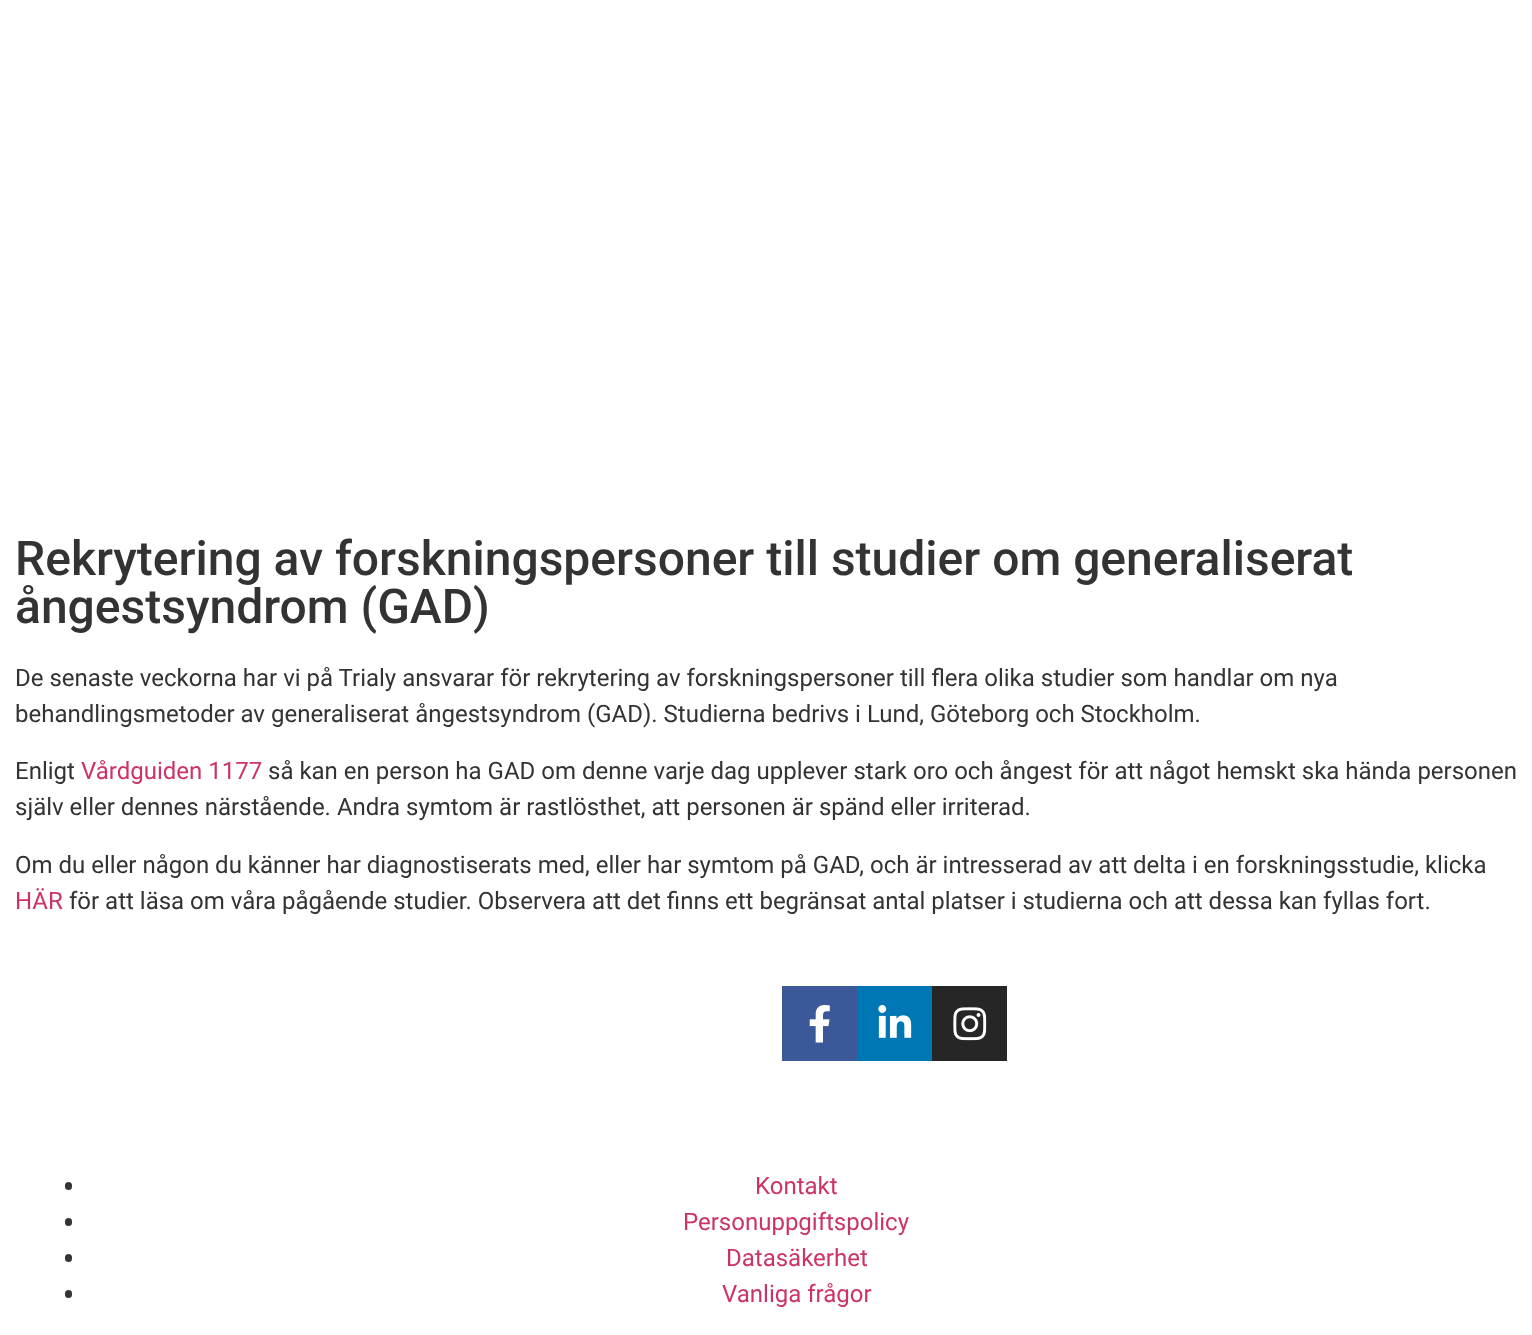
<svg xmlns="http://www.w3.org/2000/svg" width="1532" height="1335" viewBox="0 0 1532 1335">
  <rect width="100%" height="100%" fill="#fff"/>
  <path d="M782 986h75v75H782z" fill="#3b5998"/>
  <image x="809" y="1005" width="21" height="38" href="img/1.png"/>
  <path d="M857 986h75v75H857z" fill="#0077b5"/>
  <image x="878" y="1005" width="34" height="33" href="img/2.png"/>
  <path d="M932 986h75v75H932z" fill="#262626"/>
  <image x="953" y="1007" width="34" height="34" href="img/3.png"/>
  <rect x="65" y="1182" width="7" height="8" rx="3.5" fill="#333"/>
  <rect x="65" y="1218" width="7" height="8" rx="3.5" fill="#333"/>
  <rect x="65" y="1254" width="7" height="8" rx="3.5" fill="#333"/>
  <rect x="65" y="1290" width="7" height="8" rx="3.5" fill="#333"/>
  <g font-family="Roboto" font-size="48" font-weight="500" fill="#333">
    <text x="15" y="575">Rekrytering av forskningspersoner till studier om generaliserat</text>
    <text x="15" y="623">ångestsyndrom (GAD)</text>
  </g>
  <g font-family="Roboto" font-size="24" fill="#333">
    <text x="15" y="686">De senaste veckorna har vi på Trialy ansvarar för rekrytering av forskningspersoner till flera olika studier som handlar om nya</text>
    <text x="15" y="722">behandlingsmetoder av generaliserat ångestsyndrom (GAD). Studierna bedrivs i Lund, Göteborg och Stockholm.</text>
    <text x="15" y="779">Enligt</text>
  </g>
  <text x="81" y="779" font-family="Roboto" font-size="24" fill="#c36">Vårdguiden 1177</text>
  <g font-family="Roboto" font-size="24" fill="#333">
    <text x="268" y="779">så kan en person ha GAD om denne varje dag upplever stark oro och ångest för att något hemskt ska hända personen</text>
    <text x="15" y="815">själv eller dennes närstående. Andra symtom är rastlösthet, att personen är spänd eller irriterad.</text>
    <text x="15" y="873">Om du eller någon du känner har diagnostiserats med, eller har symtom på GAD, och är intresserad av att delta i en forskningsstudie, klicka</text>
  </g>
  <text x="15" y="909" font-family="Roboto" font-size="24" fill="#c36">HÄR</text>
  <text x="69" y="909" font-family="Roboto" font-size="24" fill="#333">för att läsa om våra pågående studier. Observera att det finns ett begränsat antal platser i studierna och att dessa kan fyllas fort.</text>
  <g font-family="Roboto" font-size="24" fill="#c36">
    <text x="755" y="1194">Kontakt</text>
    <text x="683" y="1230">Personuppgiftspolicy</text>
    <text x="726" y="1266">Datasäkerhet</text>
    <text x="722" y="1302">Vanliga frågor</text>
  </g>
</svg>
